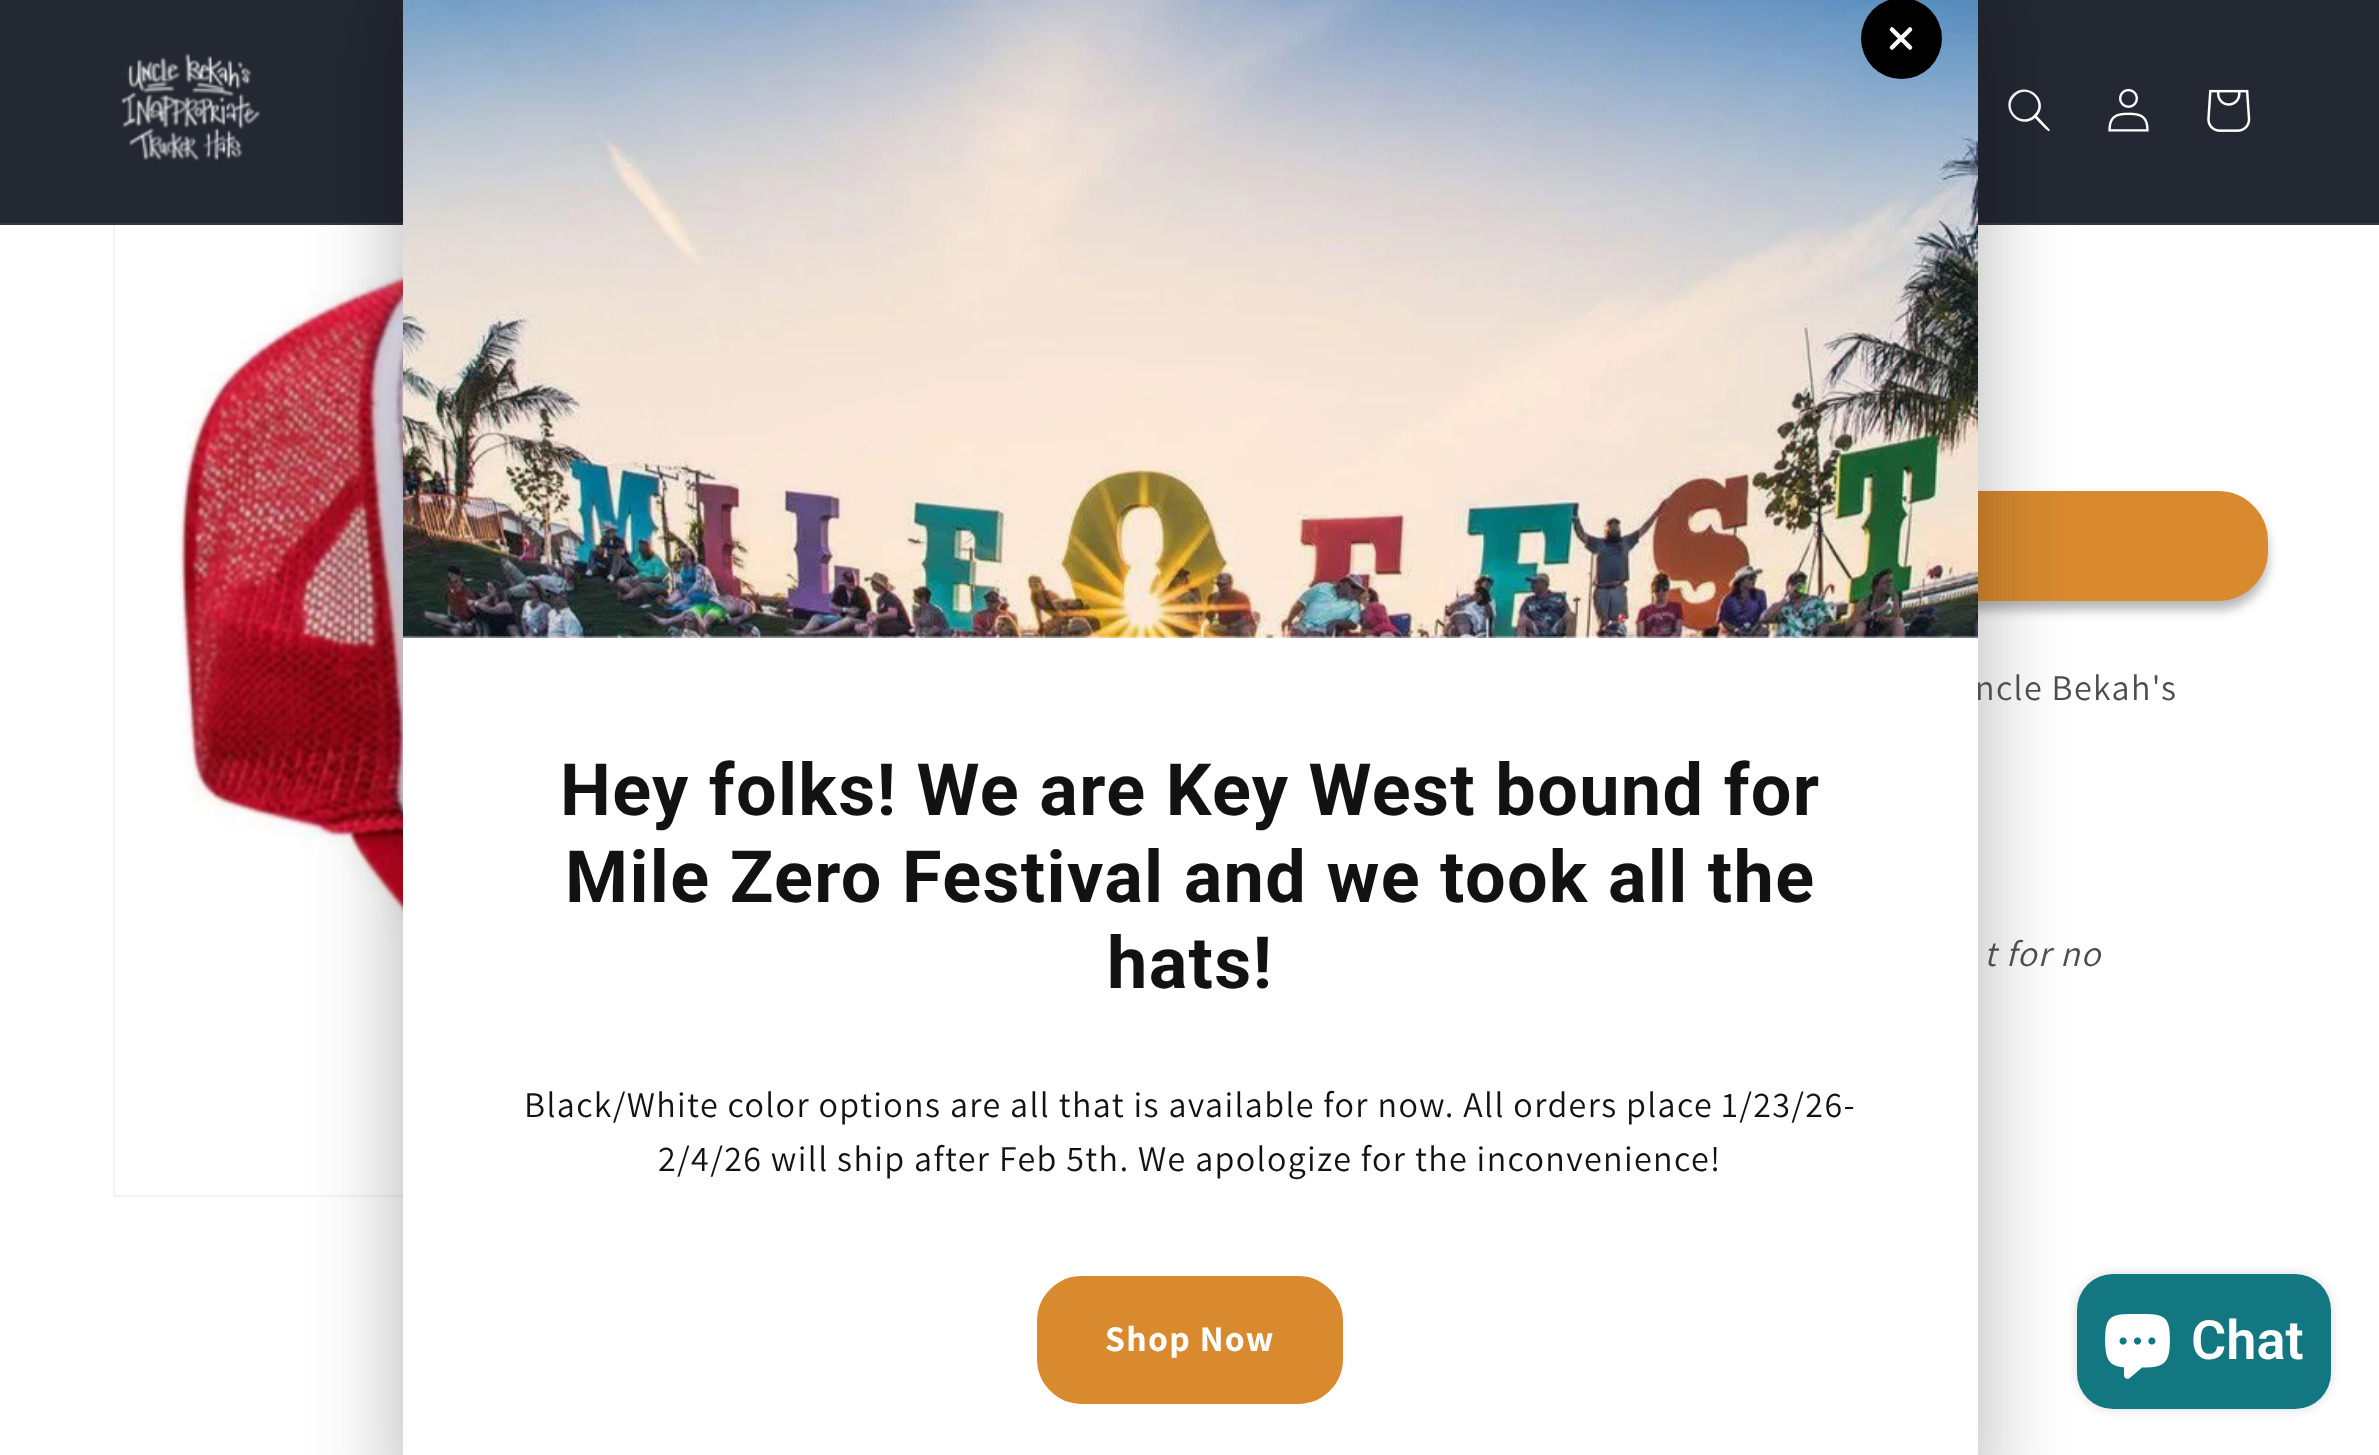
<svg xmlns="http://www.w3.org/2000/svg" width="2379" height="1455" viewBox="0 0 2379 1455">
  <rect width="100%" height="100%" fill="#fff"/>
  <path d="M114 69h1183v1127H114z" fill="none" stroke="#f3f3f3" stroke-width="2"/>
  <path d="M0 0h2379v223H0z" fill="#242833"/>
  <path d="M0 223h2379v2H0z" fill="#363943"/>
  <image x="120" y="53" width="141" height="108" href="img/1.png"/>
  <path d="M2034 115C2022 128 2002 109 2015 96C2028 83 2047 103 2034 115ZM2035 118C2019 131 1999 108 2013 94C2028 80 2050 101 2037 116L2050 130L2049 131C2048 132 2037 120 2035 118Z" fill="#fff" fill-rule="evenodd"/>
  <image x="2108" y="88" width="41" height="44" href="img/2.png"/>
  <image x="2207" y="89" width="44" height="43" href="img/3.png"/>
  <image x="177" y="225" width="226" height="865" href="img/5.png"/>
  <rect x="1411" y="500" width="857" height="110" rx="50" fill="#1212124d" filter="blur(5.5px)"/>
  <rect x="1413.5" y="493.5" width="852" height="105" rx="47.5" fill="#d98a2f" stroke="#d98a2f" stroke-width="5"/>
  <rect x="403" y="-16" width="1575" height="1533" rx="18" fill="#0000004d" filter="blur(45px)"/>
  <rect x="2077" y="1274" width="254" height="135" rx="36" fill="#00000026" filter="blur(5.5px)"/>
  <rect x="2077" y="1274" width="254" height="135" rx="36" fill="#137781"/>
  <image x="2105" y="1314" width="65" height="65" href="img/6.png"/>
  <text x="1975" y="700" font-family="Assistant" font-size="36" letter-spacing="1.35" fill="#4d4d4d">ncle Bekah's</text>
  <path d="M403 635h1575v820H403z" fill="#fff"/>
  <image x="403" y="0" width="1575" height="638" href="img/4.png"/>
  <circle cx="1901.5" cy="38.5" r="40.5" fill="#000"/>
  <path d="M1910 29.5L1892 47.5M1892 29.5L1910 47.5" fill="none" stroke="#fff" stroke-width="4.5" stroke-linecap="round"/>
  <rect x="1039.5" y="1278.5" width="301" height="123" rx="42.5" fill="#d98a2f" stroke="#d98a2f" stroke-width="5"/>
  <text x="1105" y="1351" font-family="Assistant" font-size="36" font-weight="bold" letter-spacing="1.35" fill="#fff">Shop Now</text>
  <g font-family="Assistant" font-size="36" letter-spacing="1.35" fill="#121212">
    <text x="658" y="1171">2/4/26 will ship after Feb 5th. We apologize for the inconvenience!</text>
    <text x="524" y="1117">Black/White color options are all that is available for now. All orders place 1/23/26-</text>
  </g>
  <g font-family="Roboto" font-size="72" font-weight="bold" letter-spacing="1.35" fill="#121212">
    <text x="1107" y="988">hats!</text>
    <text x="565" y="902">Mile Zero Festival and we took all the</text>
    <text x="560" y="815">Hey folks! We are Key West bound for</text>
  </g>
  <text x="1984" y="966" font-family="Assistant" font-size="36" font-style="italic" letter-spacing="1.35" fill="#4d4d4d">t for no</text>
  <text x="2191" y="1359" font-family="Roboto" font-size="54" font-weight="600" fill="#fff">Chat</text>
</svg>
